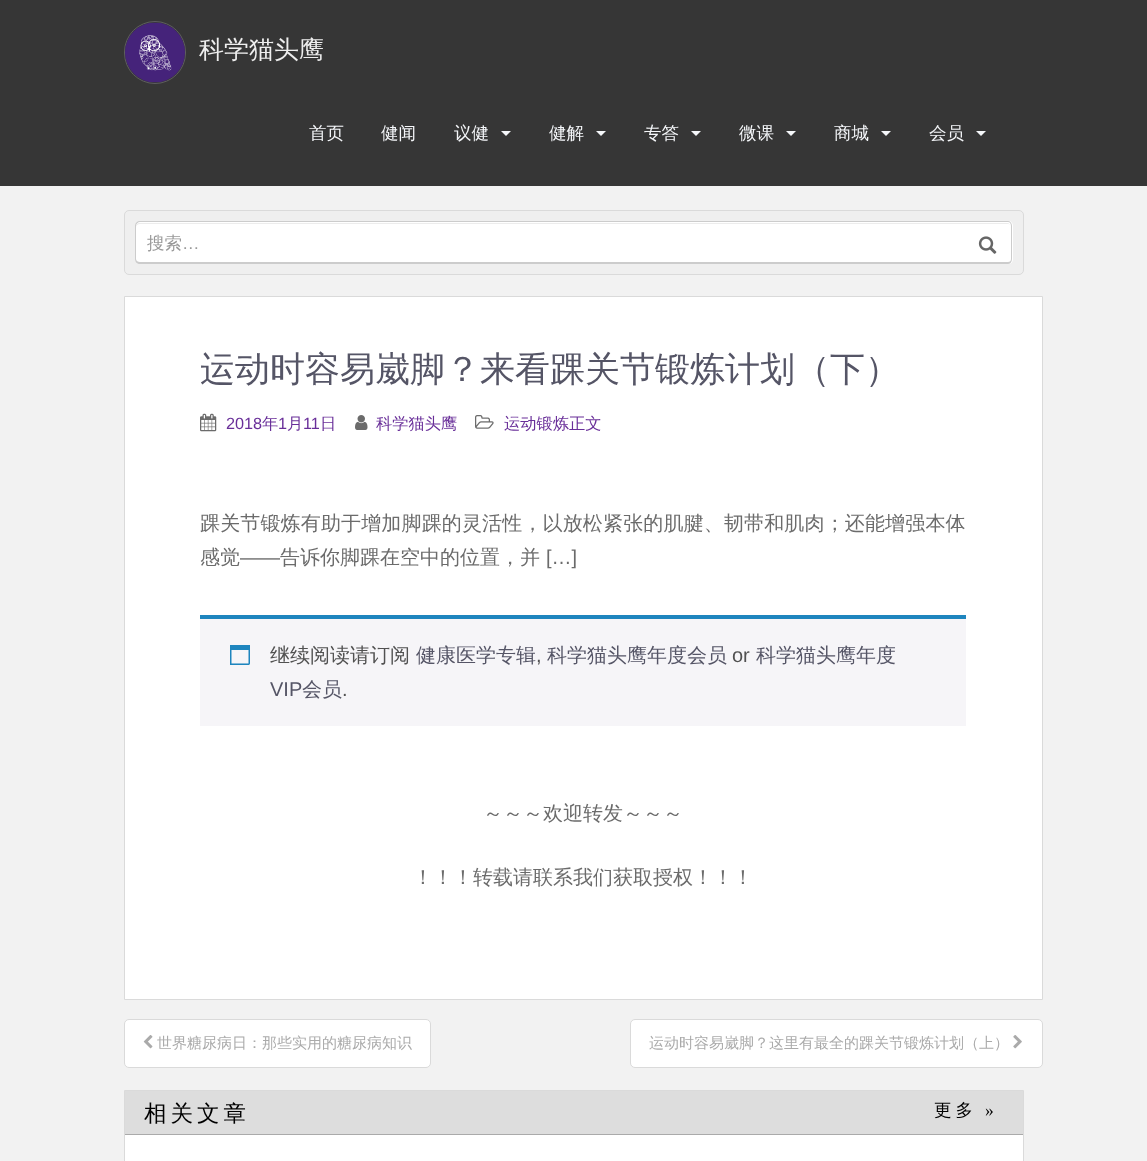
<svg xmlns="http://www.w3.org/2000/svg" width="1147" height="1161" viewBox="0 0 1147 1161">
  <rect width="100%" height="100%" fill="#f2f2f2"/>
  <path d="M0 0h1147v186H0z" fill="#363636"/>
  <rect x="124.5" y="21.5" width="61" height="62" rx="30.5" fill="none" stroke="#5e5e5e"/>
  <image x="125" y="22" width="60" height="61" href="img/1.png"/>
  <path d="M501 131H511L506 136Z" fill="#f5f7fa"/>
  <path d="M596 131H606L601 136Z" fill="#f5f7fa"/>
  <path d="M691 131H701L696 136Z" fill="#f5f7fa"/>
  <path d="M786 131H796L791 136Z" fill="#f5f7fa"/>
  <path d="M881 131H891L886 136Z" fill="#f5f7fa"/>
  <path d="M976 131H986L981 136Z" fill="#f5f7fa"/>
  <rect x="124.5" y="210.5" width="899" height="64" rx="4.5" fill="#efefef" stroke="#dadada"/>
  <path d="M140 221H964V264H140C137 264 135 262 135 259V226C135 223 137 221 140 221Z" fill="#fff"/>
  <path d="M140 224H964V223H140C137 223 136 225 136 228C136 225 138 224 140 224Z" fill="#ececec"/>
  <path d="M140 221H964V264H140C137 264 135 262 135 259V226C135 223 137 221 140 221ZM140 222H964V262H140C138 262 136 261 136 259V226C136 224 138 222 140 222Z" fill="#ccc" fill-rule="evenodd"/>
  <path d="M964 221H1008C1011 221 1013 223 1013 226V259C1013 262 1011 264 1008 264H964Z" fill="#fff"/>
  <path d="M964 224H1008C1010 224 1011 225 1011 228V227C1011 225 1009 223 1007 223H964Z" fill="#ececec"/>
  <path d="M964 221H1008C1010 221 1012 223 1012 226V259C1012 262 1010 264 1008 264H964ZM964 222H1008C1010 222 1011 224 1011 226V259C1011 261 1010 262 1008 262H964Z" fill="#ccc" fill-rule="evenodd"/>
  <image x="978" y="236" width="19" height="18" href="img/2.png"/>
  <path d="M124.5 296.5h918v703H124.5z" fill="#fff" stroke="#dadada"/>
  <image x="200" y="413" width="17" height="19" href="img/3.png"/>
  <image x="355" y="415" width="13" height="15" href="img/4.png"/>
  <image x="475" y="415" width="19" height="14" href="img/5.png"/>
  <path d="M200 619h766v107H200z" fill="#f6f5f8"/>
  <path d="M200 615h766v4H200z" fill="#1e85be"/>
  <image x="230" y="645" width="20" height="20" href="img/6.png"/>
  <rect x="124.5" y="1019.5" width="306" height="48" rx="4.5" fill="#fff" stroke="#dadada"/>
  <image x="143" y="1035" width="10" height="14" href="img/7.png"/>
  <rect x="630.5" y="1019.5" width="412" height="48" rx="4.5" fill="#fff" stroke="#dadada"/>
  <image x="1013" y="1035" width="9" height="14" href="img/8.png"/>
  <path d="M125 1135h898v26H125z" fill="#fff"/>
  <path d="M124.5 1090.5h899v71H124.5z" fill="none" stroke="#dadada"/>
  <path d="M125 1091h898v43H125z" fill="#ddd"/>
  <path d="M125 1134h898v1H125z" fill="#aaa"/>
  <text x="199" y="58" font-family="WenQuanYi Zen Hei" font-size="25" font-weight="500" fill="#eee">科学猫头鹰</text>
  <g font-family="WenQuanYi Zen Hei" font-size="17.5" font-weight="500" fill="#f5f7fa">
    <text x="309" y="139">首页</text>
    <text x="381" y="139">健闻</text>
    <text x="454" y="139">议健</text>
    <text x="549" y="139">健解</text>
    <text x="644" y="139">专答</text>
    <text x="739" y="139">微课</text>
    <text x="834" y="139">商城</text>
    <text x="929" y="139">会员</text>
  </g>
  <text x="147" y="249" font-family="WenQuanYi Zen Hei" font-size="17.5" font-weight="500" fill="#999">搜索</text>
  <text x="182" y="249" font-family="Liberation Sans" font-size="17.5" fill="#999">…</text>
  <text x="200" y="381" font-family="WenQuanYi Zen Hei" font-size="35" font-weight="500" fill="#556">运动时容易崴脚？来看踝关节锻炼计划（下）</text>
  <text x="226" y="429" font-family="Liberation Sans" font-size="16.25" fill="#692f99">2018</text>
  <text x="262" y="429" font-family="WenQuanYi Zen Hei" font-size="16.25" font-weight="500" fill="#692f99">年</text>
  <text x="278" y="429" font-family="Liberation Sans" font-size="16.25" fill="#692f99">1</text>
  <text x="287" y="429" font-family="WenQuanYi Zen Hei" font-size="16.25" font-weight="500" fill="#692f99">月</text>
  <text x="303" y="429" font-family="Liberation Sans" font-size="16.25" fill="#692f99">11</text>
  <g font-family="WenQuanYi Zen Hei" font-size="16.25" font-weight="500" fill="#692f99">
    <text x="320" y="429">日</text>
    <text x="376" y="429">科学猫头鹰</text>
    <text x="504" y="429">运动锻炼正文</text>
  </g>
  <text x="200" y="530" font-family="WenQuanYi Zen Hei" font-size="20" font-weight="500" letter-spacing="0.15" fill="#6b6b6b">踝关节锻炼有助于增加脚踝的灵活性，以放松紧张的肌腱、韧带和肌肉；还能增强本体</text>
  <text x="200" y="564" font-family="WenQuanYi Zen Hei" font-size="20" font-weight="500" fill="#6b6b6b">感觉</text>
  <text x="240" y="564" font-family="Liberation Sans" font-size="20" fill="#6b6b6b">——</text>
  <text x="280" y="564" font-family="WenQuanYi Zen Hei" font-size="20" font-weight="500" fill="#6b6b6b">告诉你脚踝在空中的位置，并</text>
  <text x="546" y="564" font-family="Liberation Sans" font-size="20" fill="#6b6b6b">[…]</text>
  <text x="270" y="662" font-family="WenQuanYi Zen Hei" font-size="20" font-weight="500" fill="#515151">继续阅读请订阅</text>
  <text x="416" y="662" font-family="WenQuanYi Zen Hei" font-size="20" font-weight="500" fill="#556">健康医学专辑</text>
  <text x="536" y="662" font-family="Liberation Sans" font-size="20" fill="#515151">,</text>
  <text x="547" y="662" font-family="WenQuanYi Zen Hei" font-size="20" font-weight="500" fill="#556">科学猫头鹰年度会员</text>
  <text x="732" y="662" font-family="Liberation Sans" font-size="20" fill="#515151">or</text>
  <text x="756" y="662" font-family="WenQuanYi Zen Hei" font-size="20" font-weight="500" fill="#556">科学猫头鹰年度</text>
  <text x="270" y="696" font-family="Liberation Sans" font-size="20" fill="#556">VIP</text>
  <text x="302" y="696" font-family="WenQuanYi Zen Hei" font-size="20" font-weight="500" fill="#556">会员</text>
  <text x="342" y="696" font-family="Liberation Sans" font-size="20" fill="#515151">.</text>
  <g font-family="WenQuanYi Zen Hei" font-size="20" font-weight="500" fill="#6b6b6b">
    <text x="483" y="820">～～～欢迎转发～～～</text>
    <text x="413" y="884">！！！转载请联系我们获取授权！！！</text>
  </g>
  <g font-family="WenQuanYi Zen Hei" font-size="15" font-weight="500" fill="#aaa">
    <text x="157" y="1048">世界糖尿病日：那些实用的糖尿病知识</text>
    <text x="649" y="1048">运动时容易崴脚？这里有最全的踝关节锻炼计划（上）</text>
  </g>
  <text x="144" y="1121" font-family="WenQuanYi Zen Hei" font-size="22.5" font-weight="500" letter-spacing="4" fill="#000">相关文章</text>
  <text x="934" y="1116" font-family="WenQuanYi Zen Hei" font-size="17.5" font-weight="500" letter-spacing="4" fill="#000">更多</text>
  <text x="985" y="1116" font-family="Liberation Serif" font-size="17.5" letter-spacing="4" fill="#000">»</text>
</svg>
